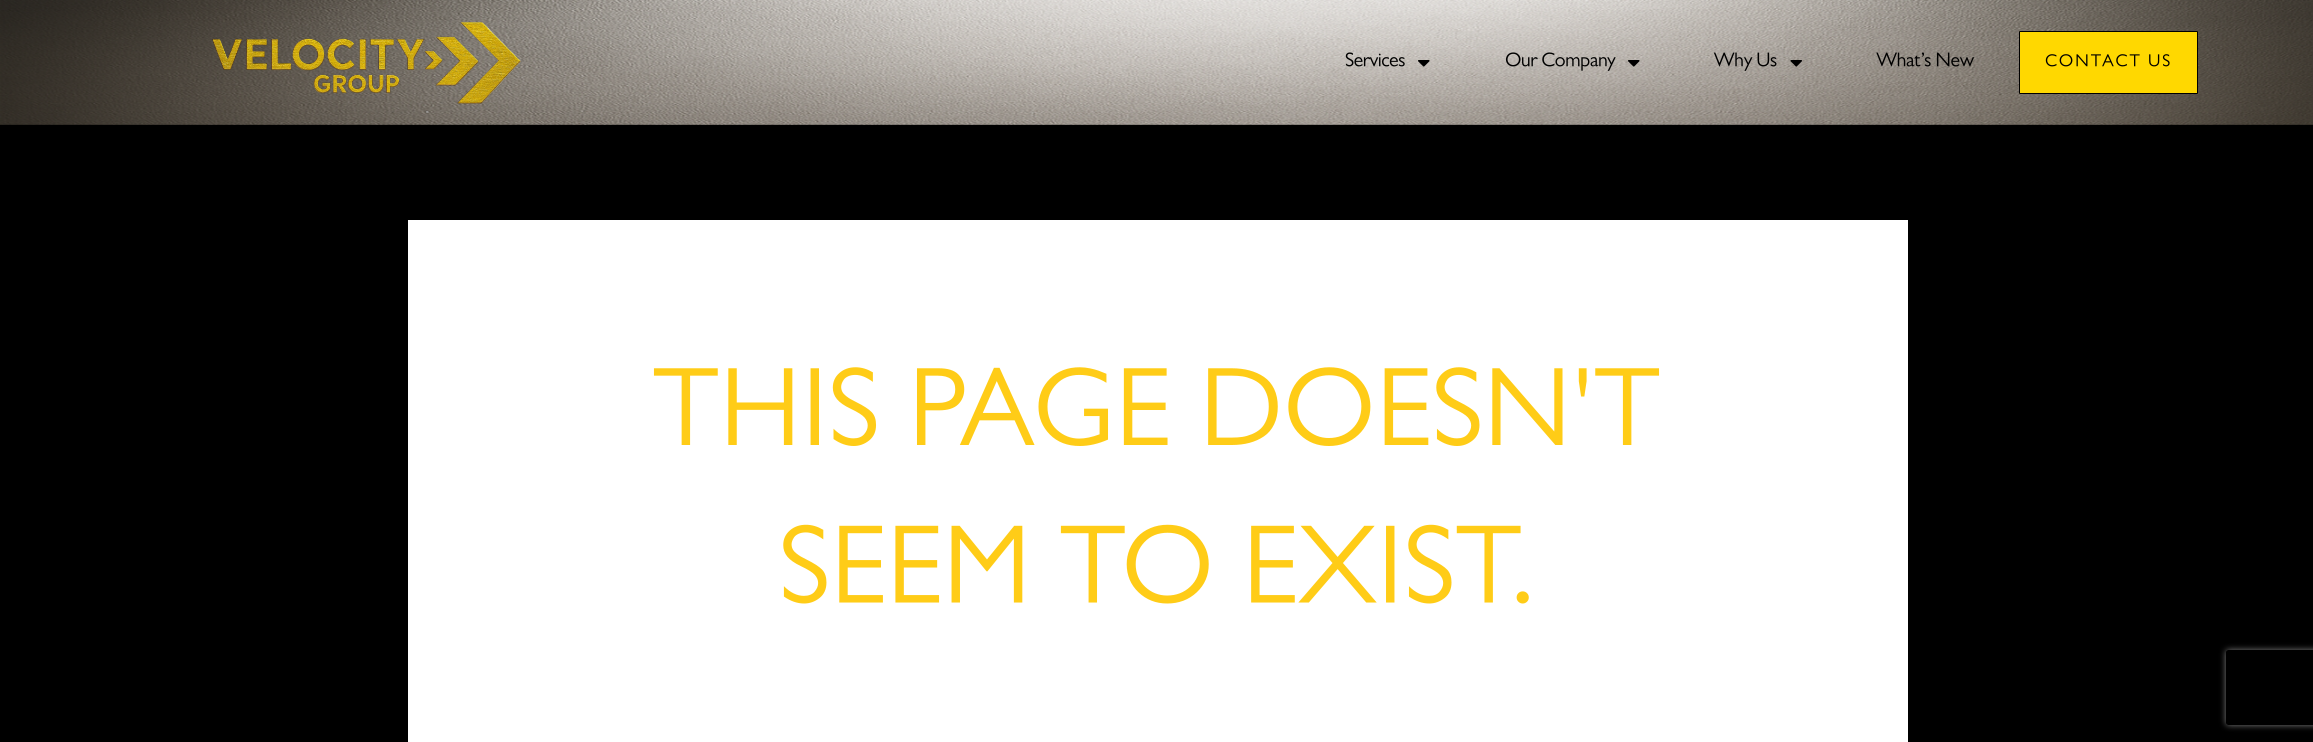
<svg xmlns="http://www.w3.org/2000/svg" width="2313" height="742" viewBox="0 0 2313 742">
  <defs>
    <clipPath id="clip1"><path d="M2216 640H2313V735H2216ZM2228.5 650H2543.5C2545 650 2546 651 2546 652.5V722.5C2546 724 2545 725 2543.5 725H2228.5C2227 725 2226 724 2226 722.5V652.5C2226 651 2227 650 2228.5 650Z" clip-rule="evenodd"/></clipPath>
  </defs>
  <rect width="100%" height="100%" fill="#000"/>
  <image x="0" y="0" width="2313" height="125" href="img/1.png"/>
  <image x="212" y="22" width="310" height="91" href="img/2.png"/>
  <image x="1345" y="52" width="60" height="15" href="img/3.png"/>
  <image x="1418" y="60" width="12" height="7" href="img/4.png"/>
  <image x="1505" y="52" width="111" height="19" href="img/5.png"/>
  <image x="1628" y="60" width="12" height="7" href="img/6.png"/>
  <image x="1713" y="52" width="64" height="19" href="img/7.png"/>
  <image x="1790" y="60" width="12" height="7" href="img/8.png"/>
  <image x="1876" y="52" width="98" height="15" href="img/9.png"/>
  <path d="M2019.5 31.5h178v62H2019.5z" fill="#ffd800" stroke="#000"/>
  <image x="2045" y="54" width="125" height="13" href="img/10.png"/>
  <path d="M408 220h1500v522H408z" fill="#fff"/>
  <image x="653" y="367" width="1007" height="79" href="img/11.png"/>
  <image x="783" y="524" width="746" height="80" href="img/12.png"/>
  <g clip-path="url(#clip1)">
    <rect x="2226" y="650" width="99" height="75" rx="2.5" fill="#808080" filter="blur(3px)"/>
  </g>
</svg>
